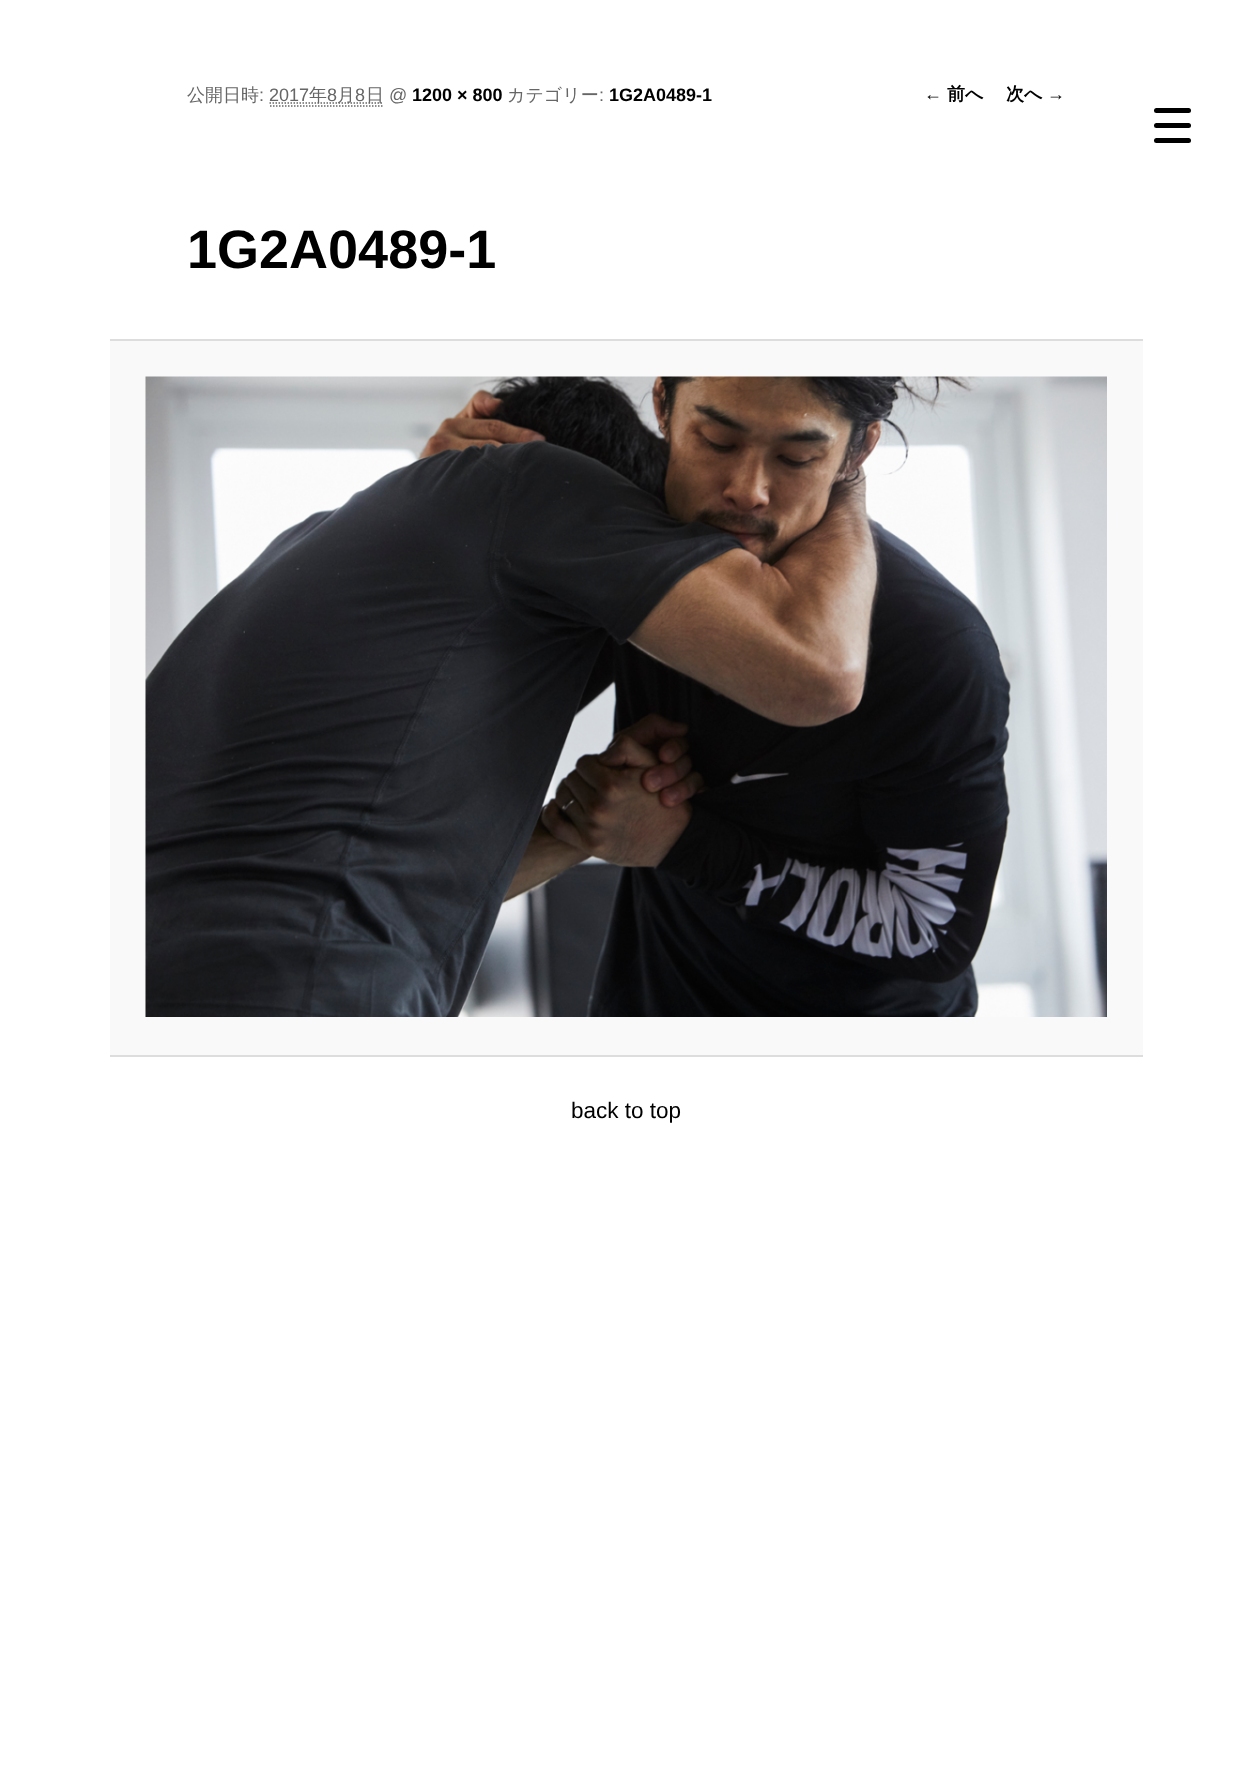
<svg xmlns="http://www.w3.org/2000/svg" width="1252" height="1792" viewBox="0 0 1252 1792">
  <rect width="100%" height="100%" fill="#fff"/>
  <path d="M270 106H384" fill="none" stroke="#666" stroke-width="1.5" stroke-dasharray="1.5 1.5"/>
  <path d="M269.5 103H383.5" fill="none" stroke="#666" stroke-width="1.5" stroke-dasharray="1.5 1.5"/>
  <path d="M110 341h1033v714H110z" fill="#f9f9f9"/>
  <path d="M110 339h1033v2H110z" fill="#ddd"/>
  <path d="M110 1055h1033v2H110z" fill="#ddd"/>
  <image x="145" y="376" width="962" height="641" href="img/1.png"/>
  <rect x="1154" y="123" width="37" height="5" rx="2.5" fill="#000"/>
  <rect x="1154" y="108" width="37" height="5" rx="2.5" fill="#000"/>
  <rect x="1154" y="138" width="37" height="5" rx="2.5" fill="#000"/>
  <text x="187" y="101" font-family="WenQuanYi Zen Hei" font-size="18" font-weight="500" fill="#666">公開日時</text>
  <text x="259" y="101" font-family="Liberation Sans" font-size="18" fill="#666">: 2017</text>
  <text x="309" y="101" font-family="WenQuanYi Zen Hei" font-size="18" font-weight="500" fill="#666">年</text>
  <text x="327" y="101" font-family="Liberation Sans" font-size="18" fill="#666">8</text>
  <text x="337" y="101" font-family="WenQuanYi Zen Hei" font-size="18" font-weight="500" fill="#666">月</text>
  <text x="355" y="101" font-family="Liberation Sans" font-size="18" fill="#666">8</text>
  <text x="366" y="101" font-family="WenQuanYi Zen Hei" font-size="18" font-weight="500" fill="#666">日</text>
  <text x="389" y="101" font-family="Liberation Sans" font-size="18" fill="#666">@</text>
  <text x="412" y="101" font-family="Liberation Sans" font-size="18" font-weight="bold" fill="#000">1200 × 800</text>
  <text x="507" y="101" font-family="WenQuanYi Zen Hei" font-size="18" font-weight="500" fill="#666">カテゴリー</text>
  <text x="599" y="101" font-family="Liberation Sans" font-size="18" fill="#666">:</text>
  <text x="609" y="101" font-family="Liberation Sans" font-size="18" font-weight="bold" fill="#000">1G2A0489-1</text>
  <text x="187" y="268" font-family="Liberation Sans" font-size="54" font-weight="bold" fill="#000">1G2A0489-1</text>
  <text x="924" y="100" font-family="Liberation Sans" font-size="18" font-weight="bold" fill="#000">←</text>
  <g font-family="WenQuanYi Zen Hei" font-size="18" font-weight="bold" fill="#000">
    <text x="947" y="100">前へ</text>
    <text x="1006" y="100">次へ</text>
  </g>
  <text x="1047" y="100" font-family="Liberation Sans" font-size="18" font-weight="bold" fill="#000">→</text>
  <text x="571" y="1118" font-family="Liberation Sans" font-size="22.5" fill="#000">back to top</text>
</svg>
